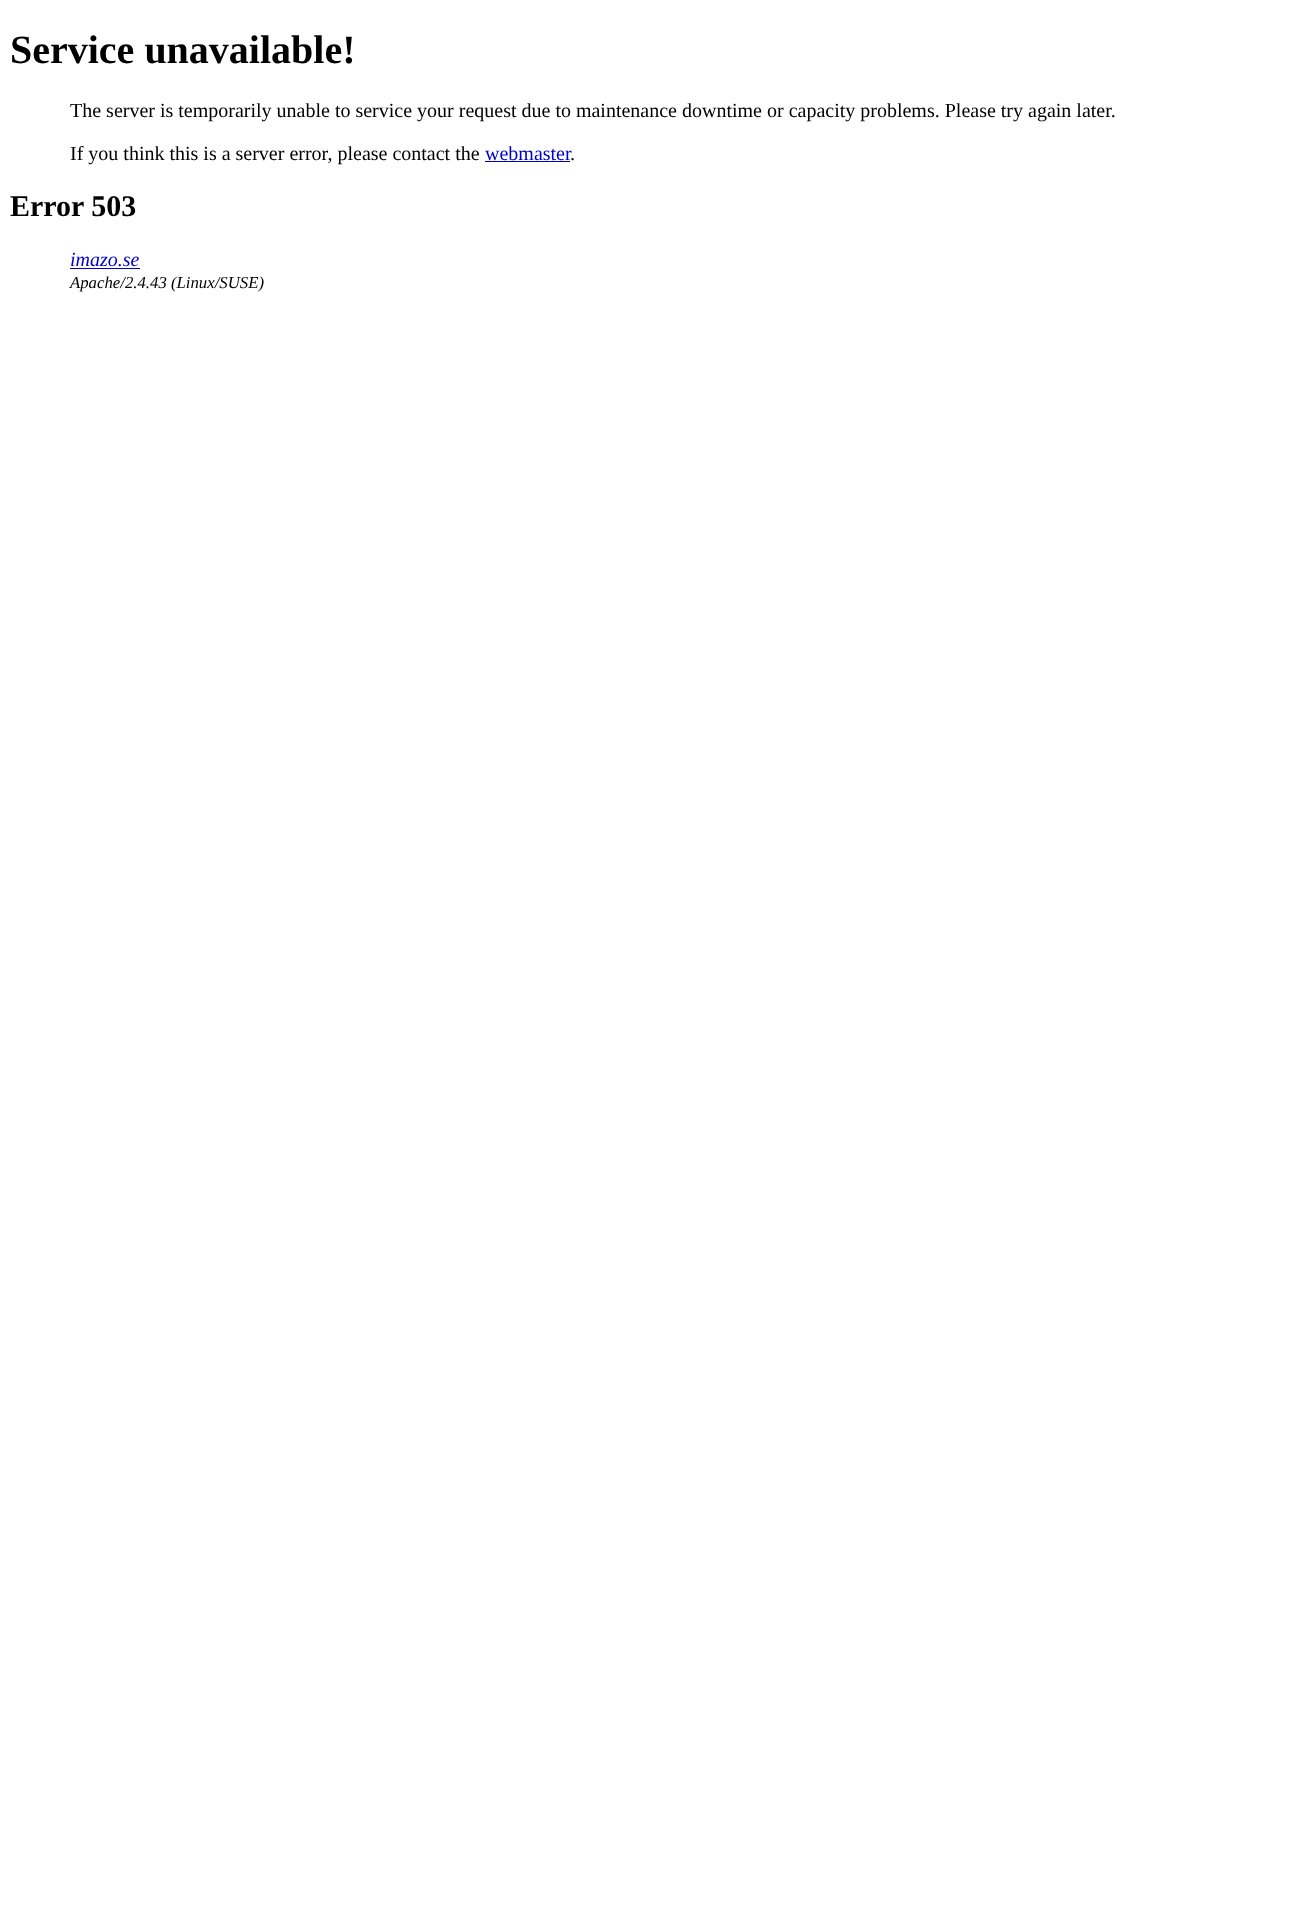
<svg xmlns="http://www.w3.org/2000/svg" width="1316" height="1911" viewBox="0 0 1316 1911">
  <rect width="100%" height="100%" fill="#fff"/>
  <path d="M485 161h85v1H485z" fill="#00c"/>
  <path d="M70 268h70v1H70z" fill="#00c"/>
  <text x="10" y="63" font-family="Liberation Serif" font-size="40" font-weight="bold" fill="#000">Service unavailable!</text>
  <g font-family="Liberation Serif" font-size="20" fill="#000">
    <text x="70" y="117">The server is temporarily unable to service your request due to maintenance downtime or capacity problems. Please try again later.</text>
    <text x="70" y="160">If you think this is a server error, please contact the</text>
  </g>
  <text x="485" y="160" font-family="Liberation Serif" font-size="20" fill="#00c">webmaster</text>
  <text x="570" y="160" font-family="Liberation Serif" font-size="20" fill="#000">.</text>
  <text x="10" y="216" font-family="Liberation Serif" font-size="30" font-weight="bold" fill="#000">Error 503</text>
  <text x="70" y="266" font-family="Liberation Serif" font-size="20" font-style="italic" fill="#00c">imazo.se</text>
  <text x="70" y="288" font-family="Liberation Serif" font-size="16.75" font-style="italic" fill="#000">Apache/2.4.43 (Linux/SUSE)</text>
</svg>
